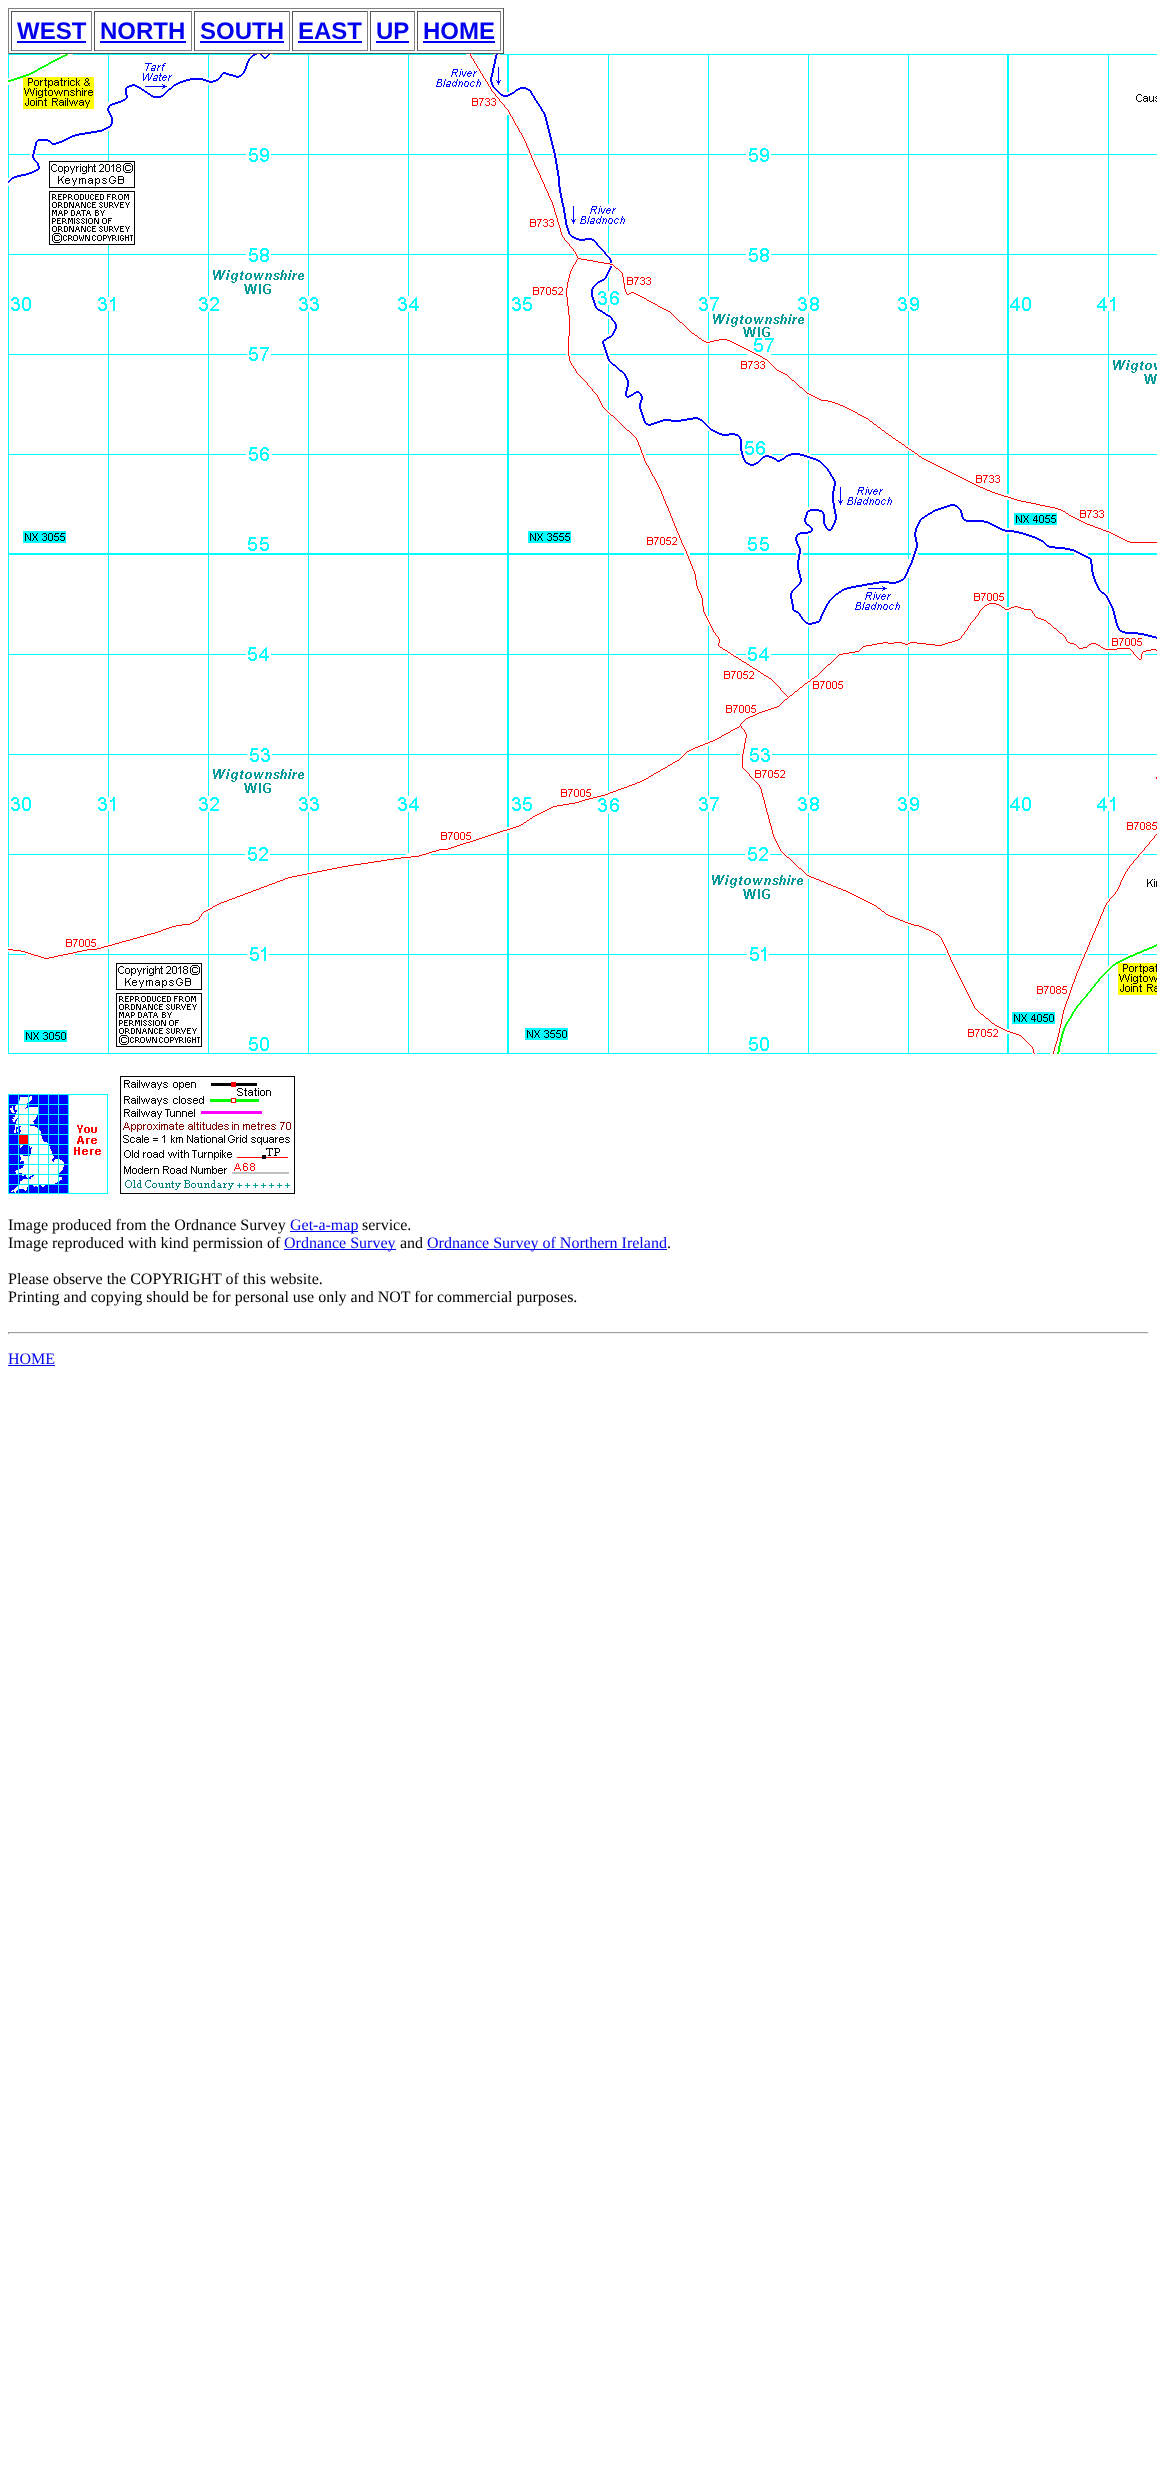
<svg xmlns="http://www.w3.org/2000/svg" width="1157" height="2467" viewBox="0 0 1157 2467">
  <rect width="100%" height="100%" fill="#fff"/>
  <path d="M8 8h496v1H8z" fill="#808080"/>
  <path d="M503 8h1v46H503z" fill="#555"/>
  <path d="M8 53h496v1H8z" fill="#555"/>
  <path d="M8 8h1v46H8z" fill="#808080"/>
  <path d="M11 11h81v1H11z" fill="#555"/>
  <path d="M91 11h1v40H91z" fill="#808080"/>
  <path d="M11 50h81v1H11z" fill="#808080"/>
  <path d="M11 11h1v40H11z" fill="#555"/>
  <path d="M17 41h69v2H17z" fill="#00e"/>
  <path d="M94 11h98v1H94z" fill="#555"/>
  <path d="M191 11h1v40H191z" fill="#808080"/>
  <path d="M94 50h98v1H94z" fill="#808080"/>
  <path d="M94 11h1v40H94z" fill="#555"/>
  <path d="M100 41h86v2H100z" fill="#00e"/>
  <path d="M194 11h96v1H194z" fill="#555"/>
  <path d="M289 11h1v40H289z" fill="#808080"/>
  <path d="M194 50h96v1H194z" fill="#808080"/>
  <path d="M194 11h1v40H194z" fill="#555"/>
  <path d="M200 41h84v2H200z" fill="#00e"/>
  <path d="M292 11h76v1H292z" fill="#555"/>
  <path d="M367 11h1v40H367z" fill="#808080"/>
  <path d="M292 50h76v1H292z" fill="#808080"/>
  <path d="M292 11h1v40H292z" fill="#555"/>
  <path d="M298 41h64v2H298z" fill="#00e"/>
  <path d="M370 11h45v1H370z" fill="#555"/>
  <path d="M414 11h1v40H414z" fill="#808080"/>
  <path d="M370 50h45v1H370z" fill="#808080"/>
  <path d="M370 11h1v40H370z" fill="#555"/>
  <path d="M376 41h33v2H376z" fill="#00e"/>
  <path d="M417 11h84v1H417z" fill="#555"/>
  <path d="M500 11h1v40H500z" fill="#808080"/>
  <path d="M417 50h84v1H417z" fill="#808080"/>
  <path d="M417 11h1v40H417z" fill="#555"/>
  <path d="M423 41h72v2H423z" fill="#00e"/>
  <image x="8" y="54" width="1149" height="1000" href="img/1.png"/>
  <image x="8" y="1094" width="100" height="100" href="img/2.png"/>
  <image x="120" y="1076" width="175" height="118" href="img/3.png"/>
  <path d="M290 1231h68v1H290z" fill="#00e"/>
  <path d="M284 1249h112v1H284z" fill="#00e"/>
  <path d="M427 1249h240v1H427z" fill="#00e"/>
  <path d="M8 1332h1141v1H8z" fill="#9f9f9f"/>
  <path d="M1148 1332h1v2H1148z" fill="#eee"/>
  <path d="M8 1333h1141v1H8z" fill="#eee"/>
  <path d="M8 1332h1v2H8z" fill="#9f9f9f"/>
  <path d="M8 1365h47v1H8z" fill="#00e"/>
  <g font-family="Liberation Sans" font-size="24" font-weight="bold" fill="#00e">
    <text x="17" y="39">WEST</text>
    <text x="100" y="39">NORTH</text>
    <text x="200" y="39">SOUTH</text>
    <text x="298" y="39">EAST</text>
    <text x="376" y="39">UP</text>
    <text x="423" y="39">HOME</text>
  </g>
  <text x="8" y="1230" font-family="Liberation Serif" font-size="16" fill="#000">Image produced from the Ordnance Survey</text>
  <text x="290" y="1230" font-family="Liberation Serif" font-size="16" fill="#00e">Get-a-map</text>
  <g font-family="Liberation Serif" font-size="16" fill="#000">
    <text x="362" y="1230">service.</text>
    <text x="8" y="1248">Image reproduced with kind permission of</text>
  </g>
  <text x="284" y="1248" font-family="Liberation Serif" font-size="16" fill="#00e">Ordnance Survey</text>
  <text x="400" y="1248" font-family="Liberation Serif" font-size="16" fill="#000">and</text>
  <text x="427" y="1248" font-family="Liberation Serif" font-size="16" fill="#00e">Ordnance Survey of Northern Ireland</text>
  <g font-family="Liberation Serif" font-size="16" fill="#000">
    <text x="667" y="1248">.</text>
    <text x="8" y="1284">Please observe the COPYRIGHT of this website.</text>
    <text x="8" y="1302">Printing and copying should be for personal use only and NOT for commercial purposes.</text>
  </g>
  <text x="8" y="1364" font-family="Liberation Serif" font-size="16" fill="#00e">HOME</text>
</svg>
